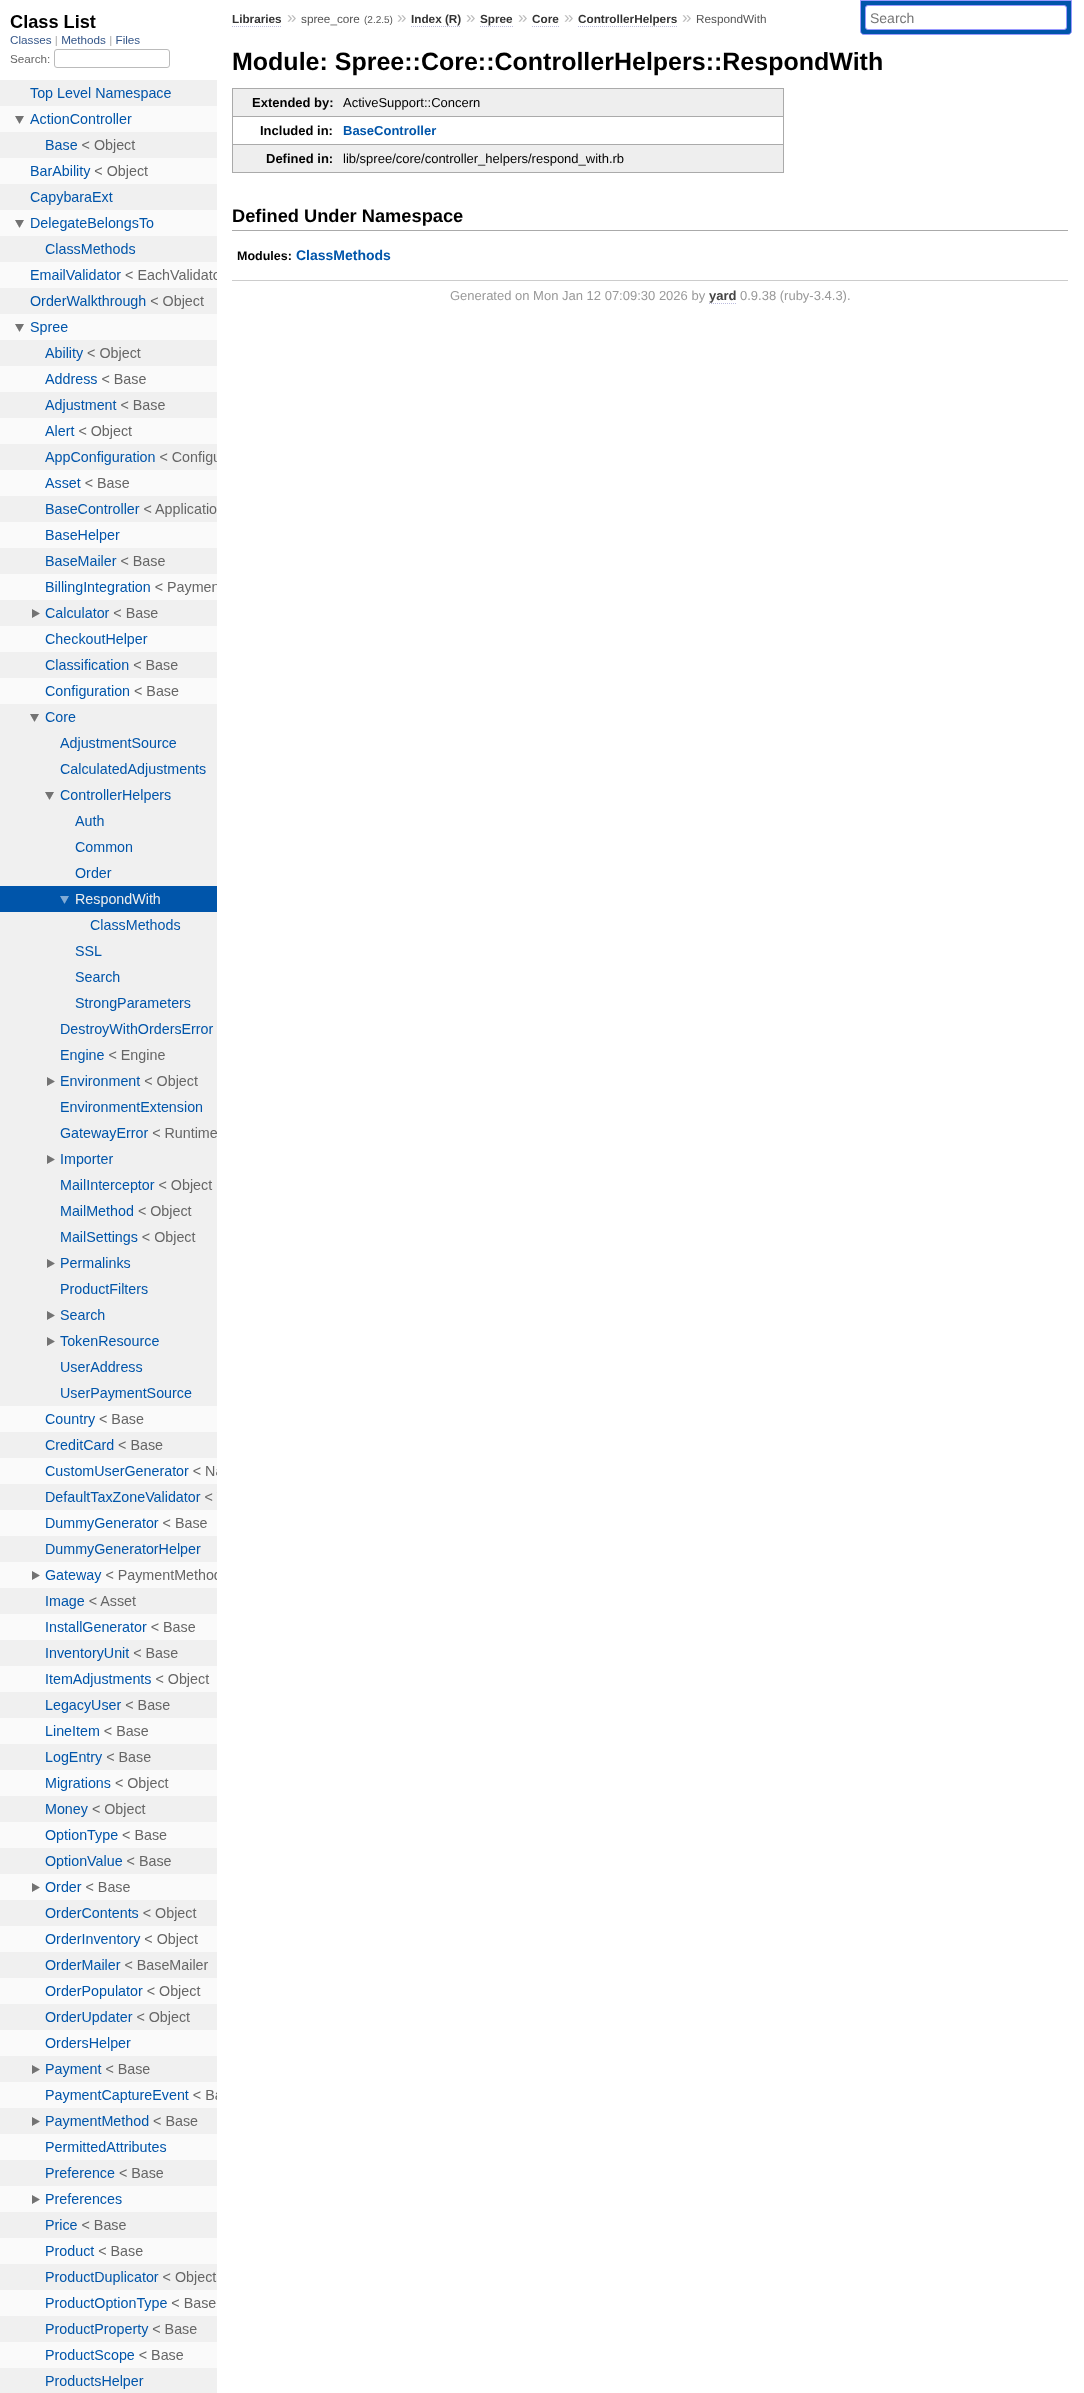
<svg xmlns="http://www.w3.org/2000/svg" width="1084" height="2393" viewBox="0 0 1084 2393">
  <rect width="100%" height="100%" fill="#fff"/>
  <image x="0" y="15" width="217" height="2378" href="img/1.png"/>
  <path d="M232 26.5H282" fill="none" stroke="#bbd" stroke-dasharray="1 1"/>
  <path d="M411 26.5H461" fill="none" stroke="#bbd" stroke-dasharray="1 1"/>
  <path d="M480 26.5H513" fill="none" stroke="#bbd" stroke-dasharray="1 1"/>
  <path d="M532 26.5H559" fill="none" stroke="#bbd" stroke-dasharray="1 1"/>
  <path d="M578 26.5H678" fill="none" stroke="#bbd" stroke-dasharray="1 1"/>
  <path d="M860.5 .5H1071.5V31C1071.5 33 1070 34.5 1068 34.5H864C862 34.5 860.5 33 860.5 31Z" fill="#05a" stroke="#99f"/>
  <rect x="865.5" y="5.5" width="201" height="24" rx="2.5" fill="#fff" stroke="#99f"/>
  <path d="M233 89h550v27H233z" fill="#eee"/>
  <path d="M232 88h552v1H232z" fill="#aaa"/>
  <path d="M232 88h1v28H232z" fill="#aaa"/>
  <path d="M232 116h552v1H232z" fill="#aaa"/>
  <path d="M232 144h552v1H232z" fill="#aaa"/>
  <path d="M783 88h1v85H783z" fill="#aaa"/>
  <path d="M232 116h1v28H232z" fill="#aaa"/>
  <path d="M233 145h550v27H233z" fill="#eee"/>
  <path d="M232 172h111v1H232z" fill="#aaa"/>
  <path d="M232 144h1v29H232z" fill="#aaa"/>
  <path d="M343 172h441v1H343z" fill="#aaa"/>
  <path d="M232 230h836v1H232z" fill="#aaa"/>
  <path d="M232 280h836v1H232z" fill="#ccc"/>
  <path d="M709 303.5H736" fill="none" stroke="#bbd" stroke-dasharray="1 1"/>
  <text x="232" y="23" font-family="Liberation Sans" font-size="11.75" font-weight="bold" fill="#333">Libraries</text>
  <text x="287" y="23" font-family="Liberation Sans" font-size="17" fill="#bbb">»</text>
  <text x="301" y="23" font-family="Liberation Sans" font-size="11.75" fill="#555">spree_core</text>
  <text x="364" y="23" font-family="Liberation Sans" font-size="10" fill="#555">(2.2.5)</text>
  <text x="397" y="23" font-family="Liberation Sans" font-size="17" fill="#bbb">»</text>
  <text x="411" y="23" font-family="Liberation Sans" font-size="11.75" font-weight="bold" fill="#333">Index (R)</text>
  <text x="466" y="23" font-family="Liberation Sans" font-size="17" fill="#bbb">»</text>
  <text x="480" y="23" font-family="Liberation Sans" font-size="11.75" font-weight="bold" fill="#333">Spree</text>
  <text x="518" y="23" font-family="Liberation Sans" font-size="17" fill="#bbb">»</text>
  <text x="532" y="23" font-family="Liberation Sans" font-size="11.75" font-weight="bold" fill="#333">Core</text>
  <text x="564" y="23" font-family="Liberation Sans" font-size="17" fill="#bbb">»</text>
  <text x="578" y="23" font-family="Liberation Sans" font-size="11.75" font-weight="bold" fill="#333">ControllerHelpers</text>
  <text x="682" y="23" font-family="Liberation Sans" font-size="17" fill="#bbb">»</text>
  <text x="696" y="23" font-family="Liberation Sans" font-size="11.75" fill="#555">RespondWith</text>
  <text x="870" y="23" font-family="Liberation Sans" font-size="14" fill="#757575">Search</text>
  <text x="232" y="70" font-family="Liberation Sans" font-size="25" font-weight="bold" fill="#000">Module: Spree::Core::ControllerHelpers::RespondWith</text>
  <text x="252" y="107" font-family="Liberation Sans" font-size="13" font-weight="bold" fill="#000">Extended by:</text>
  <text x="343" y="107" font-family="Liberation Sans" font-size="13" fill="#000">ActiveSupport::Concern</text>
  <text x="260" y="135" font-family="Liberation Sans" font-size="13" font-weight="bold" fill="#000">Included in:</text>
  <text x="343" y="135" font-family="Liberation Sans" font-size="13" font-weight="bold" fill="#05a">BaseController</text>
  <text x="266" y="163" font-family="Liberation Sans" font-size="13" font-weight="bold" fill="#000">Defined in:</text>
  <text x="343" y="163" font-family="Liberation Sans" font-size="13" fill="#000">lib/spree/core/controller_helpers/respond_with.rb</text>
  <text x="232" y="222" font-family="Liberation Sans" font-size="18.25" font-weight="bold" fill="#000">Defined Under Namespace</text>
  <text x="237" y="260" font-family="Liberation Sans" font-size="12.5" font-weight="bold" fill="#000">Modules:</text>
  <text x="296" y="260" font-family="Liberation Sans" font-size="14" font-weight="bold" fill="#05a">ClassMethods</text>
  <text x="450" y="300" font-family="Liberation Sans" font-size="13" fill="#999">Generated on Mon Jan 12 07:09:30 2026 by</text>
  <text x="709" y="300" font-family="Liberation Sans" font-size="13" font-weight="bold" fill="#444">yard</text>
  <text x="740" y="300" font-family="Liberation Sans" font-size="13" fill="#999">0.9.38 (ruby-3.4.3).</text>
</svg>
